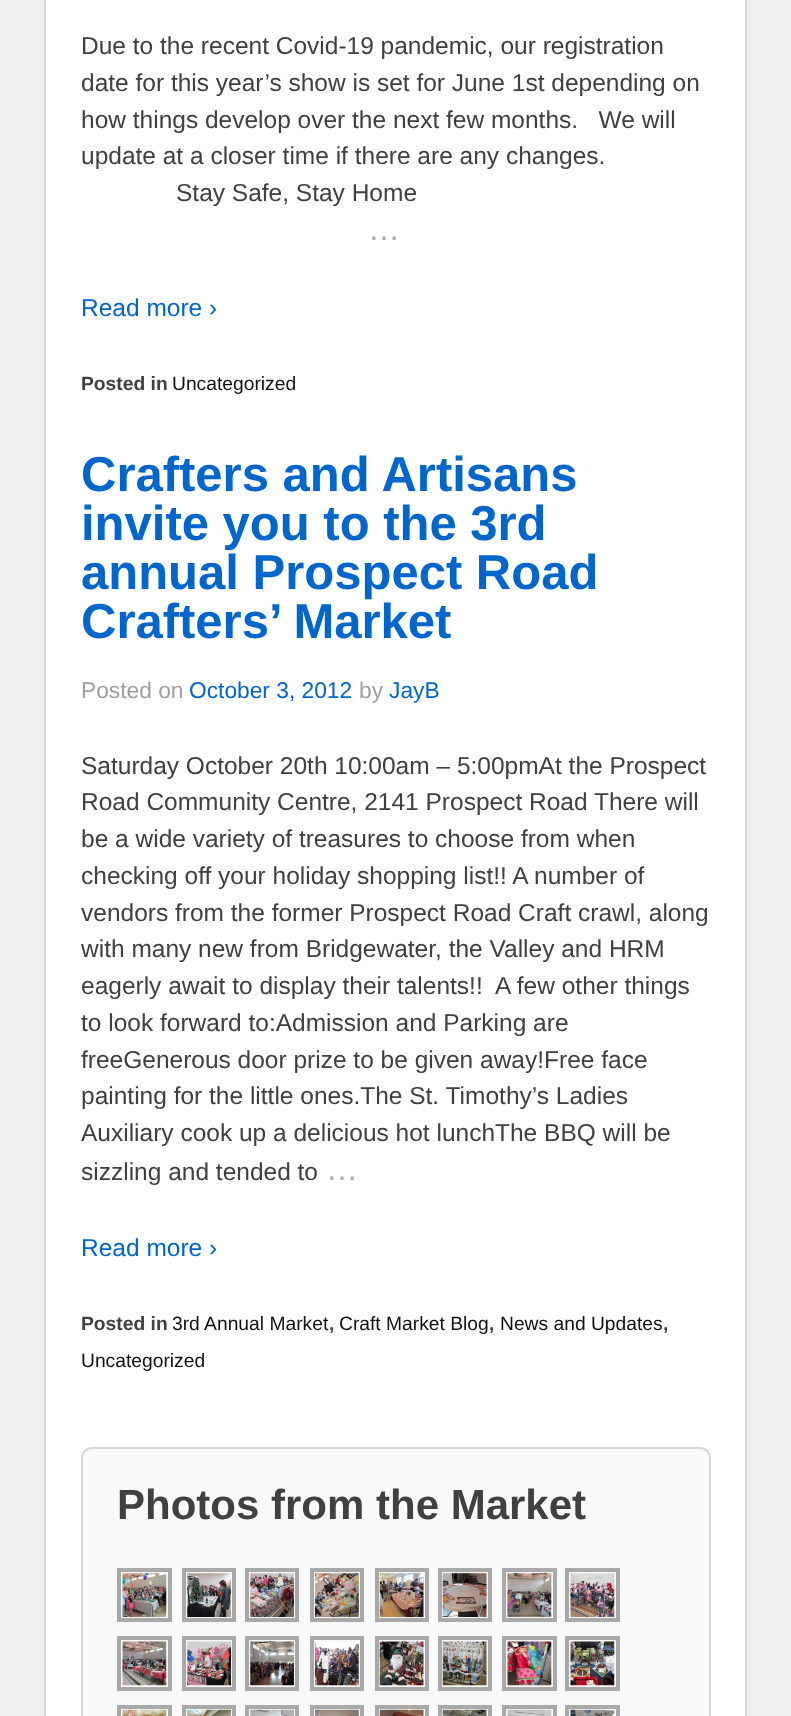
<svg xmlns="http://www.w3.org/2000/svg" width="791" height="1716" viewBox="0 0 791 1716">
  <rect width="100%" height="100%" fill="#efefef"/>
  <path d="M45 -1h701v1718H45z" fill="#fff" stroke="#d6d6d6" stroke-width="2"/>
  <rect x="82" y="1448" width="628" height="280" rx="10" fill="#f9f9f9" stroke="#d6d6d6" stroke-width="2"/>
  <path d="M119 1570h51v50H119z" fill="none" stroke="#a9a9a9" stroke-width="4"/>
  <image x="122" y="1573" width="45" height="44" href="img/1.png"/>
  <path d="M184 1570h50v50H184z" fill="none" stroke="#a9a9a9" stroke-width="4"/>
  <image x="187" y="1573" width="44" height="44" href="img/2.png"/>
  <path d="M247 1570h50v50H247z" fill="none" stroke="#a9a9a9" stroke-width="4"/>
  <image x="250" y="1573" width="44" height="44" href="img/3.png"/>
  <path d="M312 1570h50v50H312z" fill="none" stroke="#a9a9a9" stroke-width="4"/>
  <image x="315" y="1573" width="44" height="44" href="img/4.png"/>
  <path d="M377 1570h50v50H377z" fill="none" stroke="#a9a9a9" stroke-width="4"/>
  <image x="379" y="1573" width="45" height="44" href="img/5.png"/>
  <path d="M440 1570h50v50H440z" fill="none" stroke="#a9a9a9" stroke-width="4"/>
  <image x="442" y="1573" width="45" height="44" href="img/6.png"/>
  <path d="M504 1570h51v50H504z" fill="none" stroke="#a9a9a9" stroke-width="4"/>
  <image x="507" y="1573" width="45" height="44" href="img/7.png"/>
  <path d="M567 1570h51v50H567z" fill="none" stroke="#a9a9a9" stroke-width="4"/>
  <image x="570" y="1573" width="45" height="44" href="img/8.png"/>
  <path d="M119 1638h51v51H119z" fill="none" stroke="#a9a9a9" stroke-width="4"/>
  <image x="122" y="1641" width="45" height="45" href="img/9.png"/>
  <path d="M184 1638h50v51H184z" fill="none" stroke="#a9a9a9" stroke-width="4"/>
  <image x="187" y="1641" width="44" height="45" href="img/10.png"/>
  <path d="M247 1638h50v51H247z" fill="none" stroke="#a9a9a9" stroke-width="4"/>
  <image x="250" y="1641" width="44" height="45" href="img/11.png"/>
  <path d="M312 1638h50v51H312z" fill="none" stroke="#a9a9a9" stroke-width="4"/>
  <image x="315" y="1642" width="44" height="44" href="img/12.png"/>
  <path d="M377 1638h50v51H377z" fill="none" stroke="#a9a9a9" stroke-width="4"/>
  <image x="379" y="1641" width="45" height="45" href="img/13.png"/>
  <path d="M440 1638h50v51H440z" fill="none" stroke="#a9a9a9" stroke-width="4"/>
  <image x="442" y="1641" width="45" height="45" href="img/14.png"/>
  <path d="M504 1638h51v51H504z" fill="none" stroke="#a9a9a9" stroke-width="4"/>
  <image x="507" y="1641" width="45" height="45" href="img/15.png"/>
  <path d="M567 1638h51v51H567z" fill="none" stroke="#a9a9a9" stroke-width="4"/>
  <image x="570" y="1641" width="45" height="45" href="img/16.png"/>
  <path d="M119 1707h51v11H119z" fill="none" stroke="#a9a9a9" stroke-width="4"/>
  <image x="122" y="1709" width="45" height="7" href="img/17.png"/>
  <path d="M184 1707h50v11H184z" fill="none" stroke="#a9a9a9" stroke-width="4"/>
  <image x="187" y="1709" width="44" height="7" href="img/18.png"/>
  <path d="M247 1707h50v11H247z" fill="none" stroke="#a9a9a9" stroke-width="4"/>
  <image x="250" y="1709" width="44" height="7" href="img/19.png"/>
  <path d="M312 1707h50v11H312z" fill="none" stroke="#a9a9a9" stroke-width="4"/>
  <image x="315" y="1709" width="44" height="7" href="img/20.png"/>
  <path d="M377 1707h50v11H377z" fill="none" stroke="#a9a9a9" stroke-width="4"/>
  <image x="379" y="1709" width="45" height="7" href="img/21.png"/>
  <path d="M440 1707h50v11H440z" fill="none" stroke="#a9a9a9" stroke-width="4"/>
  <image x="442" y="1709" width="45" height="7" href="img/22.png"/>
  <path d="M504 1707h51v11H504z" fill="none" stroke="#a9a9a9" stroke-width="4"/>
  <image x="507" y="1709" width="45" height="7" href="img/23.png"/>
  <path d="M567 1707h51v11H567z" fill="none" stroke="#a9a9a9" stroke-width="4"/>
  <image x="570" y="1709" width="45" height="7" href="img/24.png"/>
  <g font-family="Liberation Sans" font-size="24.5" fill="#404040">
    <text x="81" y="54">Due to the recent Covid-19 pandemic, our registration</text>
    <text x="81" y="91">date for this year’s show is set for June 1st depending on</text>
    <text x="81" y="128" xml:space="preserve">how things develop over the next few months.   We will</text>
    <text x="81" y="164">update at a closer time if there are any changes.</text>
    <text x="176" y="201">Stay Safe, Stay Home</text>
  </g>
  <text x="368" y="240" font-family="Liberation Sans" font-size="32" fill="#aaa">…</text>
  <text x="81" y="316" font-family="Liberation Sans" font-size="24.5" fill="#06c">Read more ›</text>
  <text x="81" y="390" font-family="Liberation Sans" font-size="19.25" font-weight="bold" fill="#404040">Posted in</text>
  <text x="172" y="390" font-family="Liberation Sans" font-size="19.25" fill="#111">Uncategorized</text>
  <g font-family="Liberation Sans" font-size="49" font-weight="bold" fill="#06c">
    <text x="81" y="491">Crafters and Artisans</text>
    <text x="81" y="540">invite you to the 3rd</text>
    <text x="81" y="589">annual Prospect Road</text>
    <text x="81" y="638">Crafters’ Market</text>
  </g>
  <text x="81" y="698" font-family="Liberation Sans" font-size="22.75" fill="#9f9f9f">Posted on</text>
  <text x="189" y="698" font-family="Liberation Sans" font-size="22.75" fill="#06c">October 3, 2012</text>
  <text x="359" y="698" font-family="Liberation Sans" font-size="22.75" fill="#9f9f9f">by</text>
  <text x="389" y="698" font-family="Liberation Sans" font-size="22.75" fill="#06c">JayB</text>
  <g font-family="Liberation Sans" font-size="24.5" fill="#404040">
    <text x="81" y="774">Saturday October 20th 10:00am – 5:00pmAt the Prospect</text>
    <text x="81" y="810">Road Community Centre, 2141 Prospect Road There will</text>
    <text x="81" y="847">be a wide variety of treasures to choose from when</text>
    <text x="81" y="884">checking off your holiday shopping list!! A number of</text>
    <text x="81" y="921">vendors from the former Prospect Road Craft crawl, along</text>
    <text x="81" y="957">with many new from Bridgewater, the Valley and HRM</text>
    <text x="81" y="994" xml:space="preserve">eagerly await to display their talents!!  A few other things</text>
    <text x="81" y="1031">to look forward to:Admission and Parking are</text>
    <text x="81" y="1068">freeGenerous door prize to be given away!Free face</text>
    <text x="81" y="1104">painting for the little ones.The St. Timothy’s Ladies</text>
    <text x="81" y="1141">Auxiliary cook up a delicious hot lunchThe BBQ will be</text>
    <text x="81" y="1180">sizzling and tended to</text>
  </g>
  <text x="326" y="1180" font-family="Liberation Sans" font-size="32" fill="#aaa">…</text>
  <text x="81" y="1256" font-family="Liberation Sans" font-size="24.5" fill="#06c">Read more ›</text>
  <text x="81" y="1330" font-family="Liberation Sans" font-size="19.25" font-weight="bold" fill="#404040">Posted in</text>
  <text x="172" y="1330" font-family="Liberation Sans" font-size="19.25" fill="#111">3rd Annual Market</text>
  <text x="329" y="1330" font-family="Liberation Sans" font-size="19.25" font-weight="bold" fill="#404040">,</text>
  <text x="339" y="1330" font-family="Liberation Sans" font-size="19.25" fill="#111">Craft Market Blog</text>
  <text x="489" y="1330" font-family="Liberation Sans" font-size="19.25" font-weight="bold" fill="#404040">,</text>
  <text x="500" y="1330" font-family="Liberation Sans" font-size="19.25" fill="#111">News and Updates</text>
  <text x="663" y="1330" font-family="Liberation Sans" font-size="19.25" font-weight="bold" fill="#404040">,</text>
  <text x="81" y="1367" font-family="Liberation Sans" font-size="19.25" fill="#111">Uncategorized</text>
  <text x="117" y="1519" font-family="Liberation Sans" font-size="42" font-weight="bold" fill="#404040">Photos from the Market</text>
</svg>
